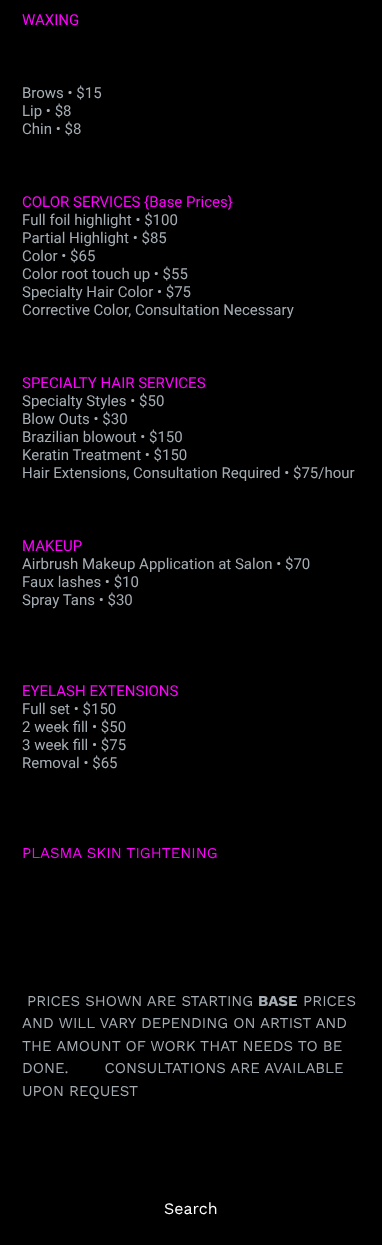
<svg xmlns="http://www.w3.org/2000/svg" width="382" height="1245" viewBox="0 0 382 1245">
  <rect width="100%" height="100%" fill="#000"/>
  <text x="22" y="25" font-family="Roboto" font-size="15" fill="#f0f">WAXING</text>
  <g font-family="Roboto" font-size="15" fill="#a5adb4">
    <text x="22" y="98">Brows • $15</text>
    <text x="22" y="116">Lip • $8</text>
    <text x="22" y="134">Chin • $8</text>
  </g>
  <text x="22" y="207" font-family="Roboto" font-size="15" fill="#f0f">COLOR SERVICES {Base Prices}</text>
  <g font-family="Roboto" font-size="15" fill="#a5adb4">
    <text x="22" y="225">Full foil highlight • $100</text>
    <text x="22" y="243">Partial Highlight • $85</text>
    <text x="22" y="261">Color • $65</text>
    <text x="22" y="279">Color root touch up • $55</text>
    <text x="22" y="297">Specialty Hair Color • $75</text>
    <text x="22" y="315">Corrective Color, Consultation Necessary</text>
  </g>
  <text x="22" y="388" font-family="Roboto" font-size="15" fill="#f0f">SPECIALTY HAIR SERVICES</text>
  <g font-family="Roboto" font-size="15" fill="#a5adb4">
    <text x="22" y="406">Specialty Styles • $50</text>
    <text x="22" y="424">Blow Outs • $30</text>
    <text x="22" y="442">Brazilian blowout • $150</text>
    <text x="22" y="460">Keratin Treatment • $150</text>
    <text x="22" y="478">Hair Extensions, Consultation Required • $75/hour</text>
  </g>
  <text x="22" y="551" font-family="Roboto" font-size="15" fill="#f0f">MAKEUP</text>
  <g font-family="Roboto" font-size="15" fill="#a5adb4">
    <text x="22" y="569">Airbrush Makeup Application at Salon • $70</text>
    <text x="22" y="587">Faux lashes • $10</text>
    <text x="22" y="605">Spray Tans • $30</text>
  </g>
  <text x="22" y="696" font-family="Roboto" font-size="15" fill="#f0f">EYELASH EXTENSIONS</text>
  <g font-family="Roboto" font-size="15" fill="#a5adb4">
    <text x="22" y="714">Full set • $150</text>
    <text x="22" y="732">2 week fill • $50</text>
    <text x="22" y="750">3 week fill • $75</text>
    <text x="22" y="768">Removal • $65</text>
  </g>
  <text x="22" y="858" font-family="Work Sans" font-size="15" fill="#f0f">PLASMA SKIN TIGHTENING</text>
  <text x="27" y="1006" font-family="Work Sans" font-size="15" fill="#a5adb4">PRICES SHOWN ARE STARTING</text>
  <text x="258" y="1006" font-family="Work Sans" font-size="15" font-weight="bold" fill="#a5adb4">BASE</text>
  <g font-family="Work Sans" font-size="15" fill="#a5adb4">
    <text x="303" y="1006">PRICES</text>
    <text x="22" y="1028">AND WILL VARY DEPENDING ON ARTIST AND</text>
    <text x="22" y="1051">THE AMOUNT OF WORK THAT NEEDS TO BE</text>
    <text x="22" y="1073" xml:space="preserve">DONE.       CONSULTATIONS ARE AVAILABLE</text>
    <text x="22" y="1096">UPON REQUEST</text>
  </g>
  <text x="164" y="1214" font-family="Work Sans" font-size="16" fill="#fff">Search</text>
</svg>
